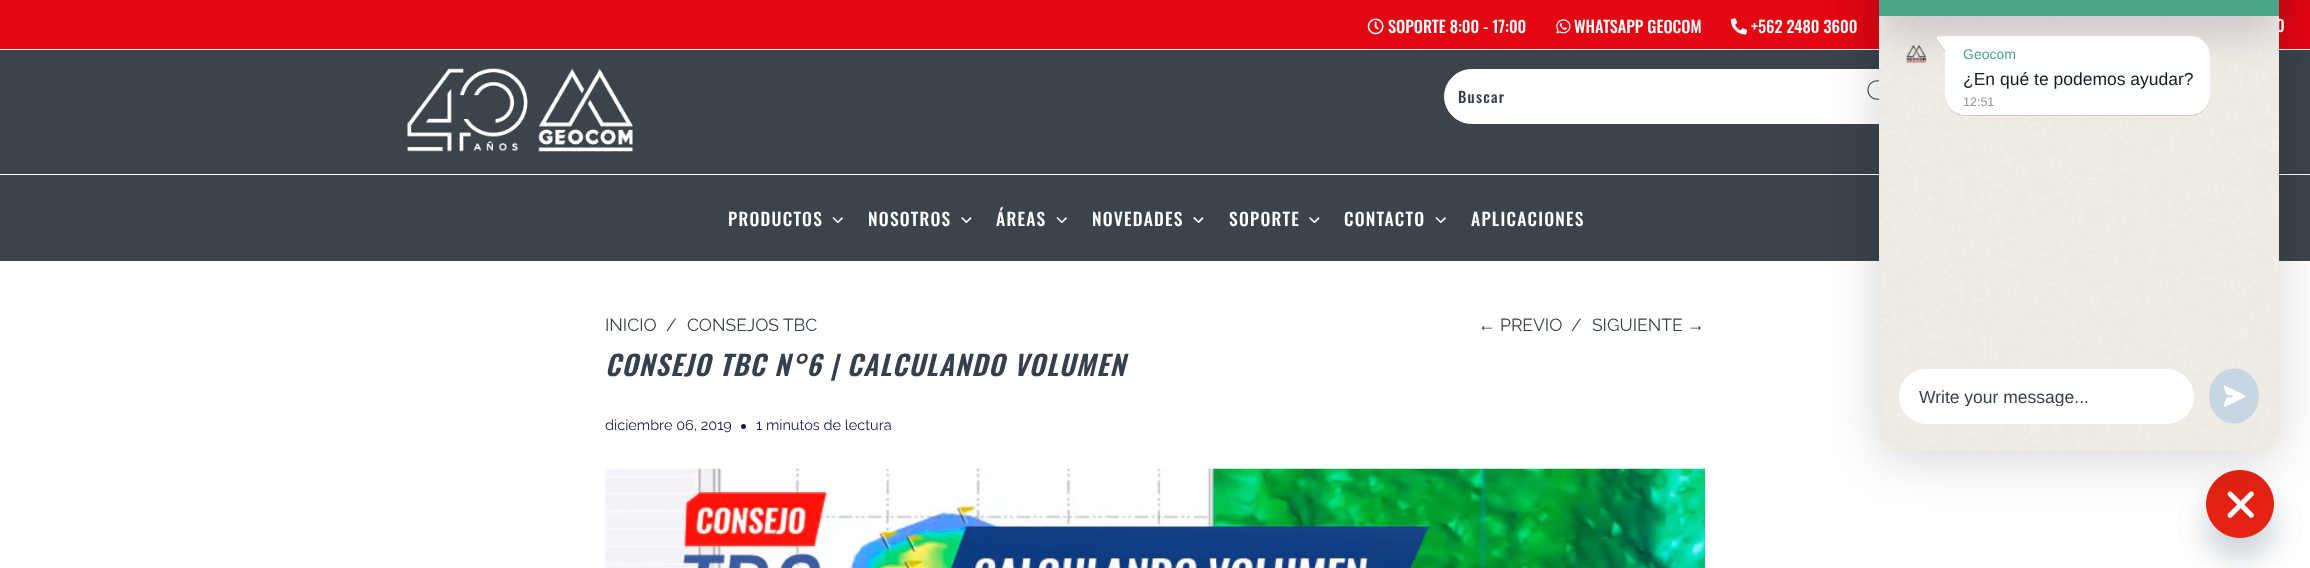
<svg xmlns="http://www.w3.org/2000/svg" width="2310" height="568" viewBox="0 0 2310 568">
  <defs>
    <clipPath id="clip1"><path d="M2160 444H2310V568H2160ZM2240 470C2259 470 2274 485 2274 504C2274 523 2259 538 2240 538C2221 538 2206 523 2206 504C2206 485 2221 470 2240 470Z" clip-rule="evenodd"/></clipPath>
    <clipPath id="clip2"><path d="M1919 386h255v20H1919z"/></clipPath>
  </defs>
  <rect width="100%" height="100%" fill="#fff"/>
  <path d="M0 0h1879v49H0z" fill="#e30613"/>
  <image x="1367" y="18" width="17" height="17" href="img/1.png"/>
  <image x="1556" y="19" width="15" height="15" href="img/2.png"/>
  <image x="1730" y="18" width="18" height="17" href="img/3.png"/>
  <path d="M2279 0h31v49H2279z" fill="#e30613"/>
  <path d="M0 50h2310v211H0z" fill="#3b444b"/>
  <image x="407" y="68" width="226" height="84" href="img/4.png"/>
  <rect x="1444.5" y="69.5" width="461" height="54" rx="27" fill="#fff" stroke="#fff"/>
  <image x="1867" y="80" width="12" height="20" href="img/5.png"/>
  <path d="M0 174h2310v1H0z" fill="#fff"/>
  <path d="M842 217L843 218.5L838 223L837 222Z" fill="#fff"/>
  <path d="M833.5 217L838.5 222L837.5 223L832.5 218Z" fill="#fff"/>
  <path d="M970.5 217L971.5 218.5L966.5 223L965.5 222Z" fill="#fff"/>
  <path d="M962 217L967.5 222L966 223L961 218Z" fill="#fff"/>
  <path d="M1066 217L1067 218.5L1062 223L1061 222Z" fill="#fff"/>
  <path d="M1057.5 217L1062.5 222L1061.5 223L1056.5 218Z" fill="#fff"/>
  <path d="M1202.5 217L1203.5 218.5L1199 223L1197.5 222Z" fill="#fff"/>
  <path d="M1194.5 217L1199.5 222L1198.5 223L1193 218Z" fill="#fff"/>
  <path d="M1318.5 217L1319.5 218.5L1315 223L1313.5 222Z" fill="#fff"/>
  <path d="M1310 217L1315.5 222L1314 223L1309 218Z" fill="#fff"/>
  <path d="M1445 217L1446 218.5L1441 223L1440 222Z" fill="#fff"/>
  <path d="M1436.5 217L1441.5 222L1440.5 223L1435.5 218Z" fill="#fff"/>
  <circle cx="743.5" cy="426.5" r="2.5" fill="#131a53"/>
  <image x="605" y="468" width="1100" height="100" href="img/6.png"/>
  <rect x="2206" y="490" width="68" height="68" rx="34" fill="#49687e29" filter="blur(15px)"/>
  <image x="2206" y="470" width="68" height="68" href="img/11.png"/>
  <rect x="1879" y="-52" width="400" height="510" rx="19" fill="#00000029" filter="blur(25px)"/>
  <g clip-path="url(#clip1)">
    <rect x="2206" y="490" width="68" height="68" rx="34" fill="#49687e29" filter="blur(15px)"/>
  </g>
  <g font-family="Oswald" font-size="16.25" font-weight="500" fill="#fff">
    <text x="1388" y="33">SOPORTE 8:00 - 17:00</text>
    <text x="1574" y="33">WHATSAPP GEOCOM</text>
    <text x="1751" y="33">+562 2480 3600</text>
    <text x="2276" y="32">0</text>
  </g>
  <text x="1458" y="103" font-family="Oswald" font-size="15" font-weight="500" letter-spacing="1.25" fill="#363f4d">Buscar</text>
  <g font-family="Oswald" font-size="17.5" font-weight="500" letter-spacing="1.25" fill="#fff">
    <text x="728" y="226">PRODUCTOS</text>
    <text x="868" y="226">NOSOTROS</text>
    <text x="996" y="226">ÁREAS</text>
    <text x="1092" y="226">NOVEDADES</text>
    <text x="1229" y="226">SOPORTE</text>
    <text x="1344" y="226">CONTACTO</text>
    <text x="1471" y="226">APLICACIONES</text>
  </g>
  <g font-family="Raleway" font-size="17.5" font-weight="100" fill="#363f4d">
    <text x="605" y="331">INICIO</text>
    <text x="666" y="331">/</text>
    <text x="687" y="331">CONSEJOS TBC</text>
  </g>
  <text x="1478" y="331" font-family="Liberation Sans" font-size="17.5" fill="#363f4d">←</text>
  <g font-family="Raleway" font-size="17.5" font-weight="100" fill="#363f4d">
    <text x="1500" y="331">PREVIO</text>
    <text x="1571" y="331">/</text>
    <text x="1592" y="331">SIGUIENTE</text>
  </g>
  <text x="1687" y="331" font-family="Liberation Sans" font-size="17.5" fill="#363f4d">→</text>
  <text x="605" y="376" font-family="Oswald" font-size="27.5" font-weight="600" font-style="italic" letter-spacing="1.25" fill="#363f4d">CONSEJO TBC N°6 | CALCULANDO VOLUMEN</text>
  <g font-family="Raleway" font-size="14.5" font-weight="100" fill="#131a53">
    <text x="605" y="430">diciembre 06, 2019</text>
    <text x="756" y="430">1 minutos de lectura</text>
  </g>
  <image x="1879" y="16" width="400" height="435" href="img/7.png"/>
  <rect x="1879" y="-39" width="400" height="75" rx="19" fill="#1a0e3529" filter="blur(20px)"/>
  <path d="M1879 0h400v16H1879z" fill="#4aa485"/>
  <image x="1905" y="45" width="22" height="19" href="img/8.png"/>
  <rect x="1945" y="38" width="265" height="78" rx="20" fill="#00000021" filter="blur(0.5px)"/>
  <path d="M1945 36H2190C2201 36 2210 45 2210 56V95C2210 106 2201 115 2190 115H1965C1954 115 1945 106 1945 95Z" fill="#fff"/>
  <image x="1936" y="36" width="9" height="15" href="img/9.png"/>
  <text x="1963" y="59" font-family="Liberation Sans" font-size="14" fill="#4aa485">Geocom</text>
  <text x="1963" y="85" font-family="Liberation Sans" font-size="17.5" fill="#111b21">¿En qué te podemos ayudar?</text>
  <text x="1963" y="106" font-family="Liberation Sans" font-size="12.5" fill="#93939d">12:51</text>
  <rect x="1899" y="369" width="295" height="55" rx="27.5" fill="#fff"/>
  <g clip-path="url(#clip2)">
    <text x="1919" y="403" font-family="Liberation Sans" font-size="17.5" fill="#363f4d">Write your message...</text>
  </g>
  <ellipse cx="2234" cy="396" rx="25" ry="27.5" fill="#c6d7e3"/>
  <image x="2223" y="385" width="23" height="22" href="img/10.png"/>
</svg>
